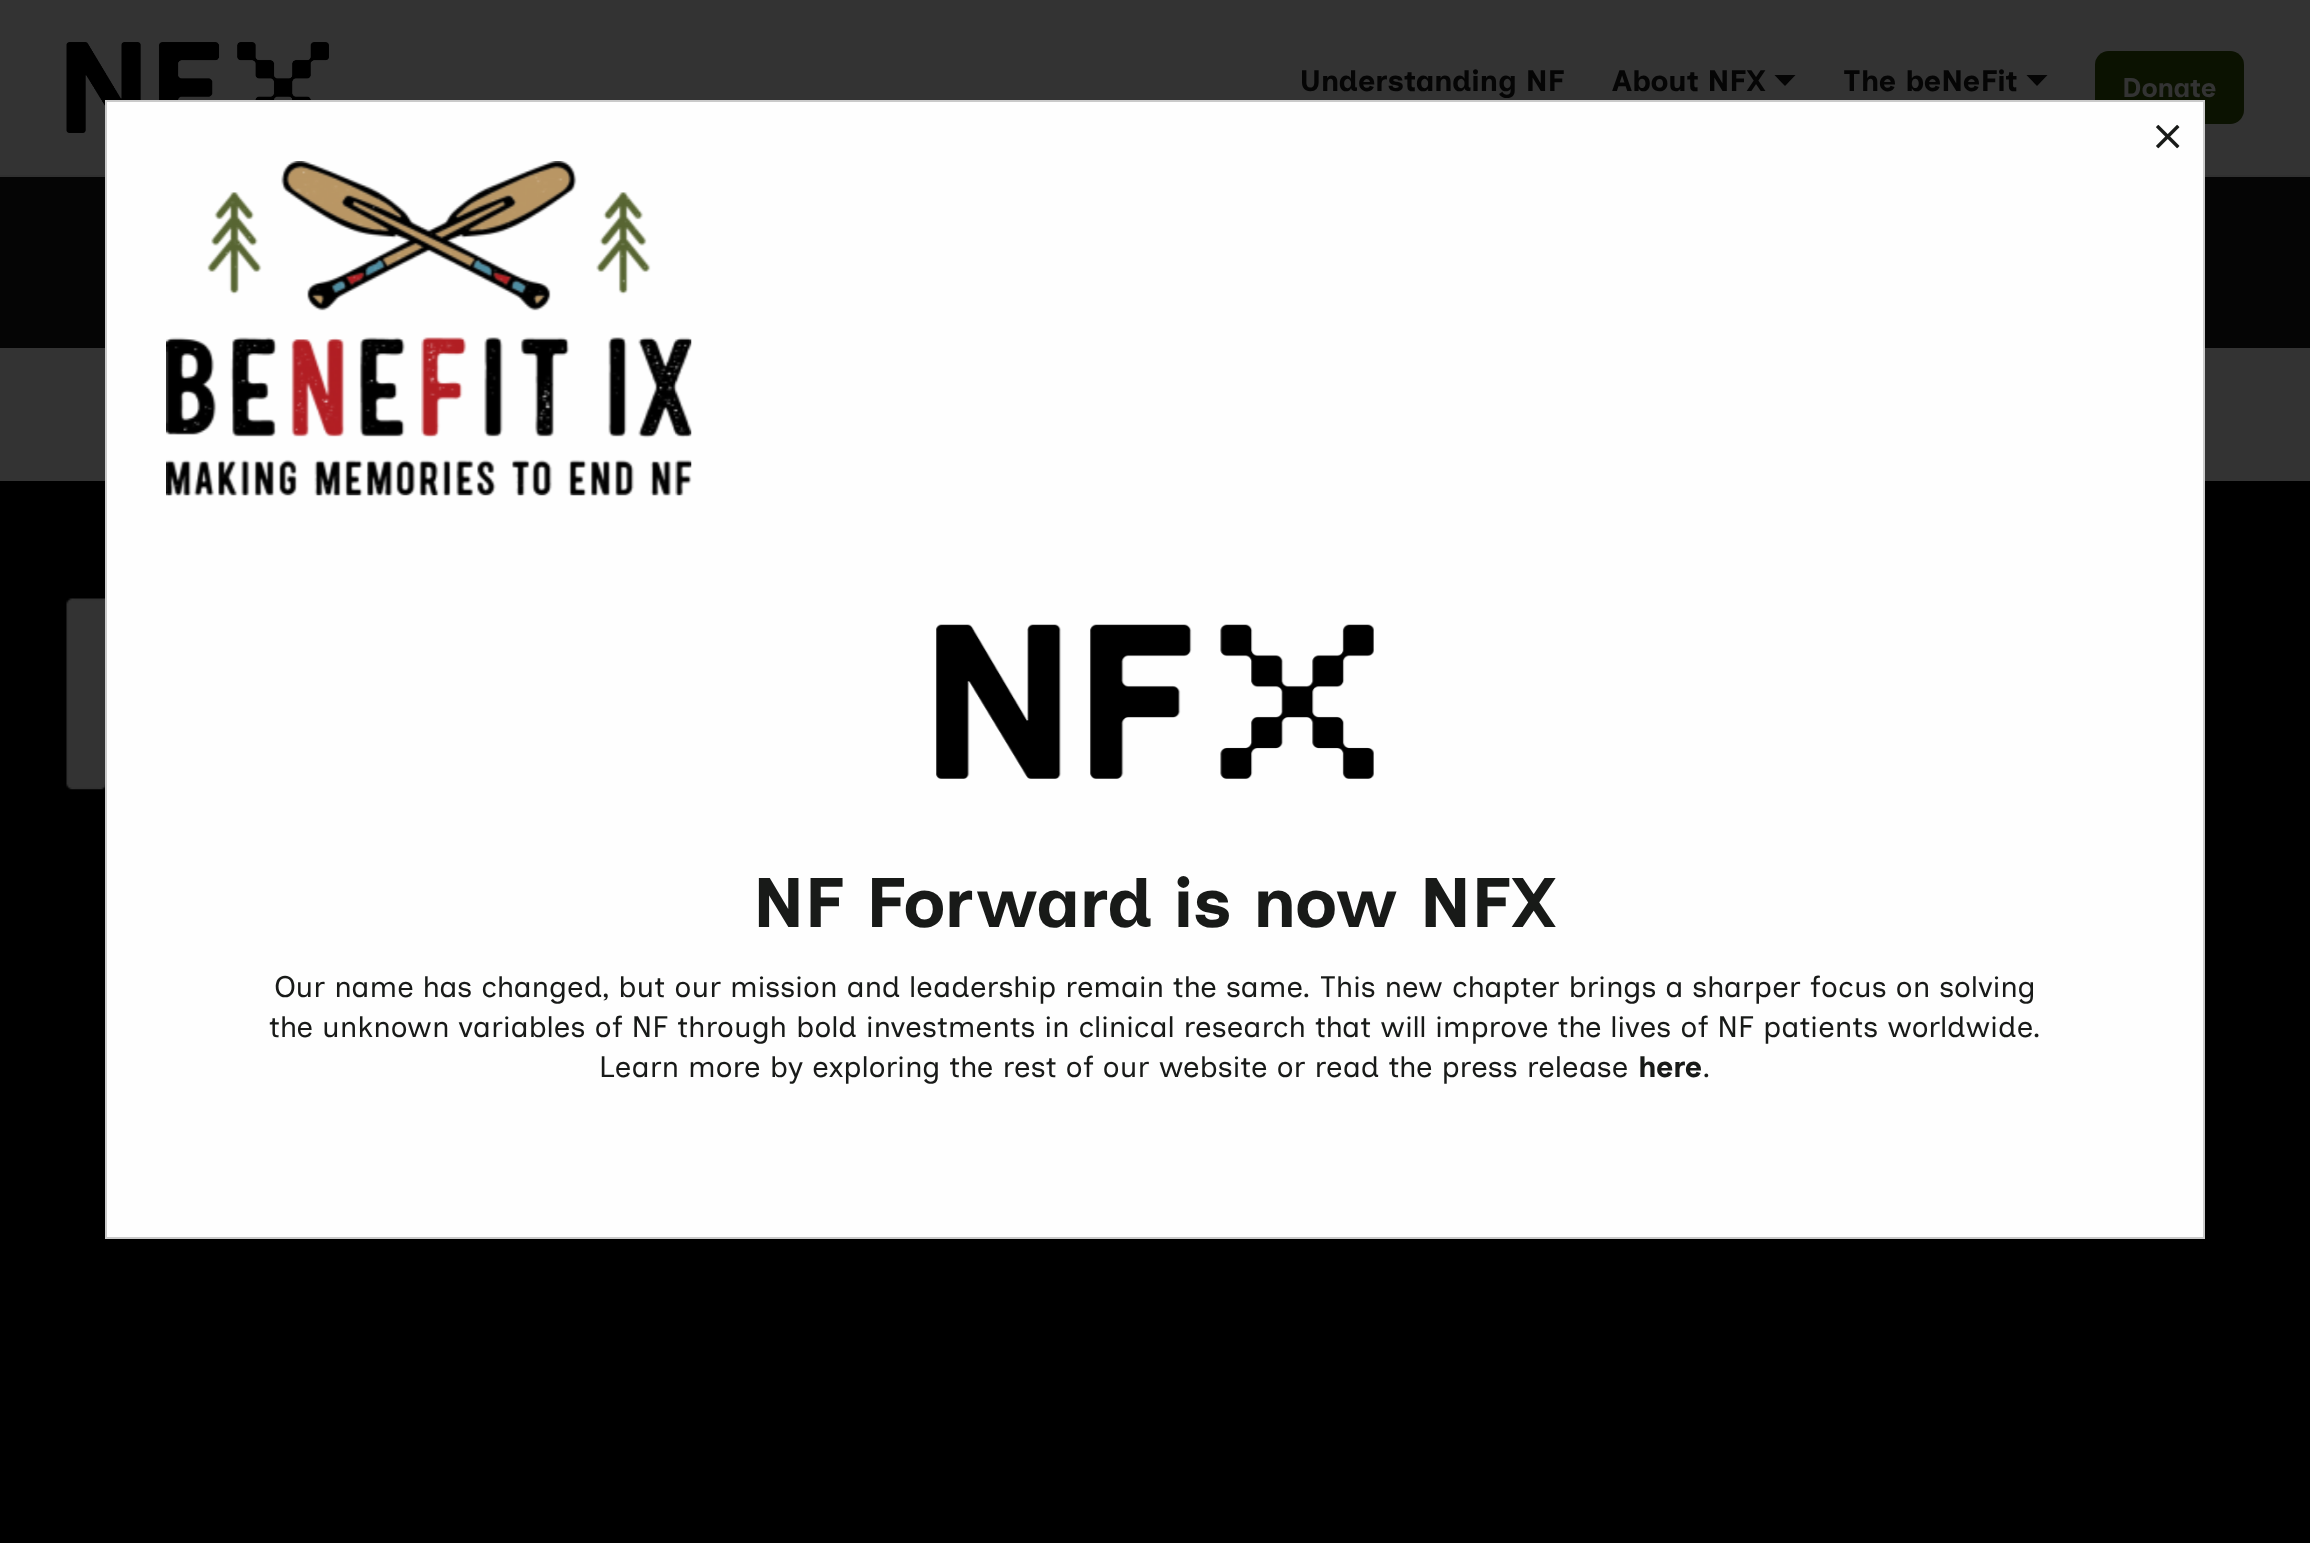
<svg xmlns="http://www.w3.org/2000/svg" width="2310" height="1543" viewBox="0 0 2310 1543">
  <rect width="100%" height="100%" fill="#000"/>
  <path d="M0 0h2310v175H0z" fill="#333"/>
  <path d="M0 175h2310v2H0z" fill="#303030"/>
  <image x="66" y="42" width="263" height="91" href="img/1.png"/>
  <path d="M1774.5 75H1795.5L1785 86Z" fill="#050505"/>
  <path d="M2026.5 75H2047.5L2037 86Z" fill="#050505"/>
  <rect x="2095" y="51" width="149" height="73" rx="14" fill="#0b1201"/>
  <path d="M0 348h2310v133H0z" fill="#333"/>
  <path d="M0 177h2310v171H0z" fill="#050505"/>
  <image x="66" y="598" width="39" height="192" href="img/2.png"/>
  <path d="M106 101h2098v1137H106z" fill="#fefefe" stroke="#cacaca" stroke-width="2"/>
  <image x="2156" y="124" width="24" height="25" href="img/3.png"/>
  <image x="166" y="161" width="526" height="335" href="img/4.png"/>
  <image x="936" y="624" width="438" height="155" href="img/5.png"/>
  <g font-family="Inclusive Sans" font-size="29.75" font-weight="bold" fill="#050505">
    <text x="1300" y="91">Understanding NF</text>
    <text x="1612" y="91">About NFX</text>
    <text x="1843" y="91">The beNeFit</text>
  </g>
  <text x="2122" y="97" font-family="Inclusive Sans" font-size="27" font-weight="bold" fill="#333">Donate</text>
  <text x="753" y="927" font-family="Inclusive Sans" font-size="70" font-weight="bold" fill="#181a18">NF Forward is now NFX</text>
  <g font-family="Inclusive Sans" font-size="29.75" fill="#181a18">
    <text x="274" y="997">Our name has changed, but our mission and leadership remain the same. This new chapter brings a sharper focus on solving</text>
    <text x="269" y="1037">the unknown variables of NF through bold investments in clinical research that will improve the lives of NF patients worldwide.</text>
    <text x="599" y="1077">Learn more by exploring the rest of our website or read the press release</text>
  </g>
  <text x="1638" y="1077" font-family="Inclusive Sans" font-size="29.75" font-weight="bold" fill="#181a18">here</text>
  <text x="1702" y="1077" font-family="Inclusive Sans" font-size="29.75" fill="#181a18">.</text>
</svg>
